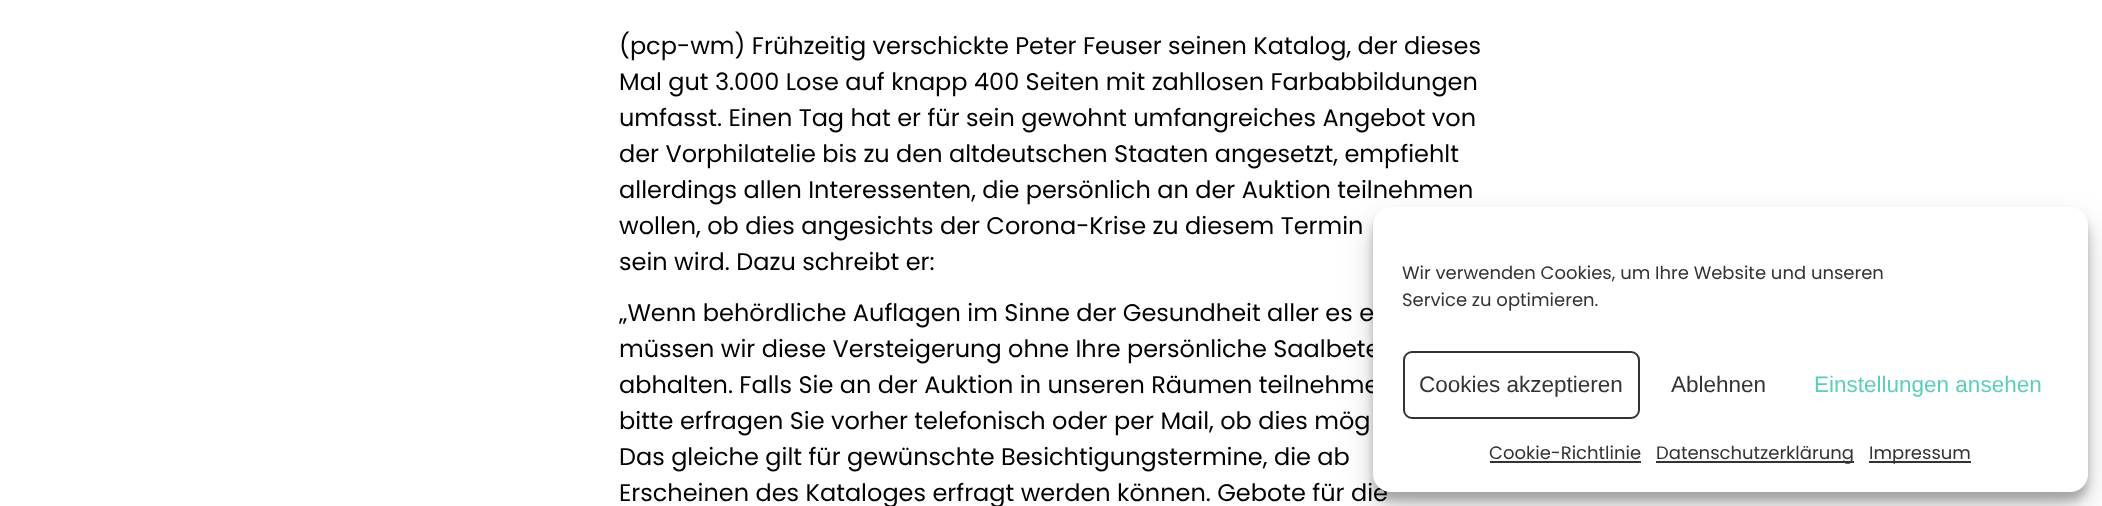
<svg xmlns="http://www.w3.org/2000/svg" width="2102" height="506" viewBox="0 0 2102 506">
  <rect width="100%" height="100%" fill="#fff"/>
  <rect x="1373" y="216" width="715" height="285" rx="18" fill="#0000003b" filter="blur(4.5px)"/>
  <rect x="1373" y="222" width="715" height="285" rx="18" fill="#00000030" filter="blur(15px)"/>
  <g font-family="Poppins" font-size="24" fill="#000">
    <text x="619" y="54">(pcp-wm) Frühzeitig verschickte Peter Feuser seinen Katalog, der dieses</text>
    <text x="619" y="90">Mal gut 3.000 Lose auf knapp 400 Seiten mit zahllosen Farbabbildungen</text>
    <text x="619" y="126">umfasst. Einen Tag hat er für sein gewohnt umfangreiches Angebot von</text>
    <text x="619" y="162">der Vorphilatelie bis zu den altdeutschen Staaten angesetzt, empfiehlt</text>
    <text x="619" y="198">allerdings allen Interessenten, die persönlich an der Auktion teilnehmen</text>
    <text x="619" y="234">wollen, ob dies angesichts der Corona-Krise zu diesem Termin</text>
    <text x="619" y="270">sein wird. Dazu schreibt er:</text>
    <text x="619" y="321">„Wenn behördliche Auflagen im Sinne der Gesundheit aller es e</text>
    <text x="619" y="357">müssen wir diese Versteigerung ohne Ihre persönliche Saalbete</text>
    <text x="619" y="393">abhalten. Falls Sie an der Auktion in unseren Räumen teilnehme</text>
    <text x="619" y="429">bitte erfragen Sie vorher telefonisch oder per Mail, ob dies mög</text>
    <text x="619" y="465">Das gleiche gilt für gewünschte Besichtigungstermine, die ab</text>
    <text x="619" y="501">Erscheinen des Kataloges erfragt werden können. Gebote für die</text>
  </g>
  <rect x="1373" y="207" width="715" height="285" rx="18" fill="#fff"/>
  <g font-family="Poppins" font-size="18" fill="#333">
    <text x="1402" y="279">Wir verwenden Cookies, um Ihre Website und unseren</text>
    <text x="1402" y="306">Service zu optimieren.</text>
  </g>
  <rect x="1404" y="352" width="235" height="66" rx="8" fill="none" stroke="#333" stroke-width="2"/>
  <g font-family="Liberation Sans" font-size="22.5" fill="#333">
    <text x="1419" y="392">Cookies akzeptieren</text>
    <text x="1671" y="392">Ablehnen</text>
  </g>
  <text x="1814" y="392" font-family="Liberation Sans" font-size="22.5" fill="#5ccebb">Einstellungen ansehen</text>
  <text x="1489" y="459" font-family="Poppins" font-size="18" fill="#333">Cookie-Richtlinie</text>
  <path d="M1490 461h151v2H1490z" fill="#333"/>
  <path d="M1656 461h198v2H1656z" fill="#333"/>
  <text x="1656" y="459" font-family="Poppins" font-size="18" fill="#333">Datenschutzerklärung</text>
  <path d="M1869 461h102v2H1869z" fill="#333"/>
  <text x="1869" y="459" font-family="Poppins" font-size="18" fill="#333">Impressum</text>
</svg>
